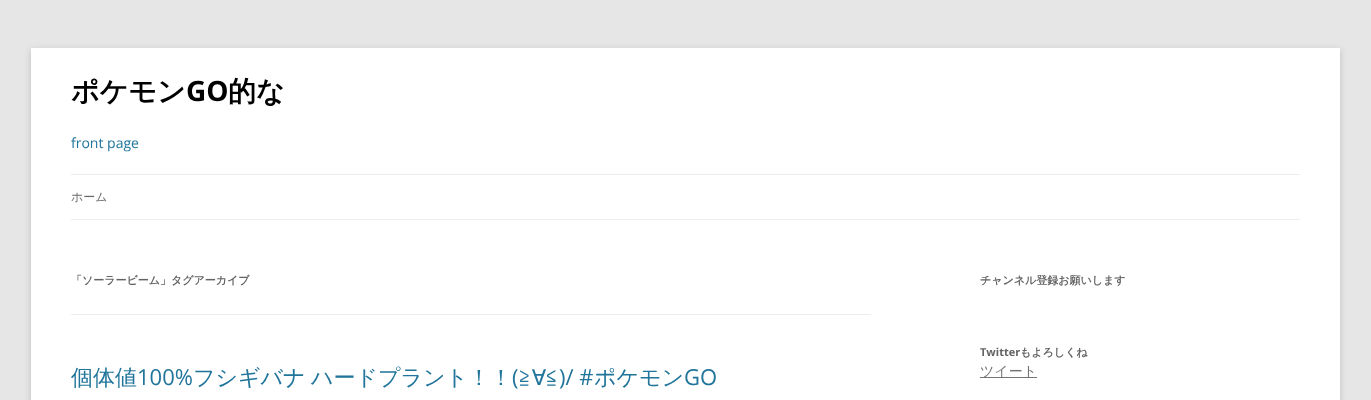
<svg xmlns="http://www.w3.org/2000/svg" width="1371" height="400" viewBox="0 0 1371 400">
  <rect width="100%" height="100%" fill="#e6e6e6"/>
  <path d="M31 50h1309v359H31z" fill="#6464644d" filter="blur(3px)"/>
  <path d="M31 48h1309v352H31z" fill="#fff"/>
  <path d="M71 174h1229v1H71z" fill="#ededed"/>
  <path d="M71 219h1229v1H71z" fill="#ededed"/>
  <path d="M71 314h800v1H71z" fill="#ededed"/>
  <path d="M980 377h57v1H980z" fill="#757575"/>
  <text x="71" y="101" font-family="WenQuanYi Zen Hei" font-size="28" font-weight="bold" fill="#000">ポケモン</text>
  <text x="186" y="101" font-family="Open Sans" font-size="28" font-weight="bold" fill="#000">GO</text>
  <text x="228" y="101" font-family="WenQuanYi Zen Hei" font-size="28" font-weight="bold" fill="#000">的な</text>
  <text x="71" y="148" font-family="Open Sans" font-size="14" fill="#21759b">front page</text>
  <text x="71" y="201" font-family="WenQuanYi Zen Hei" font-size="12" font-weight="500" fill="#6a6a6a">ホーム</text>
  <text x="71" y="284" font-family="WenQuanYi Zen Hei" font-size="11" font-weight="bold" fill="#636363">「ソーラービーム」タグアーカイブ</text>
  <text x="71" y="385" font-family="WenQuanYi Zen Hei" font-size="22" font-weight="500" fill="#21759b">個体値</text>
  <text x="137" y="385" font-family="Open Sans" font-size="22" fill="#21759b">100%</text>
  <g font-family="WenQuanYi Zen Hei" font-size="22" font-weight="500" fill="#21759b">
    <text x="193" y="385">フシギバナ</text>
    <text x="311" y="385">ハードプラント！！ ≧∀≦</text>
    <text x="594" y="385">ポケモン</text>
  </g>
  <g font-family="Open Sans" font-size="22" fill="#21759b">
    <text x="512" y="385">(</text>
    <text x="559" y="385">)/ #</text>
    <text x="684" y="385">GO</text>
  </g>
  <text x="980" y="284" font-family="WenQuanYi Zen Hei" font-size="11" font-weight="bold" fill="#636363">チャンネル登録お願いします</text>
  <text x="980" y="356" font-family="Open Sans" font-size="11" font-weight="bold" fill="#636363">Twitter</text>
  <text x="1020" y="356" font-family="WenQuanYi Zen Hei" font-size="11" font-weight="bold" fill="#636363">もよろしくね</text>
  <text x="980" y="376" font-family="WenQuanYi Zen Hei" font-size="14" font-weight="500" fill="#757575">ツイート</text>
</svg>
